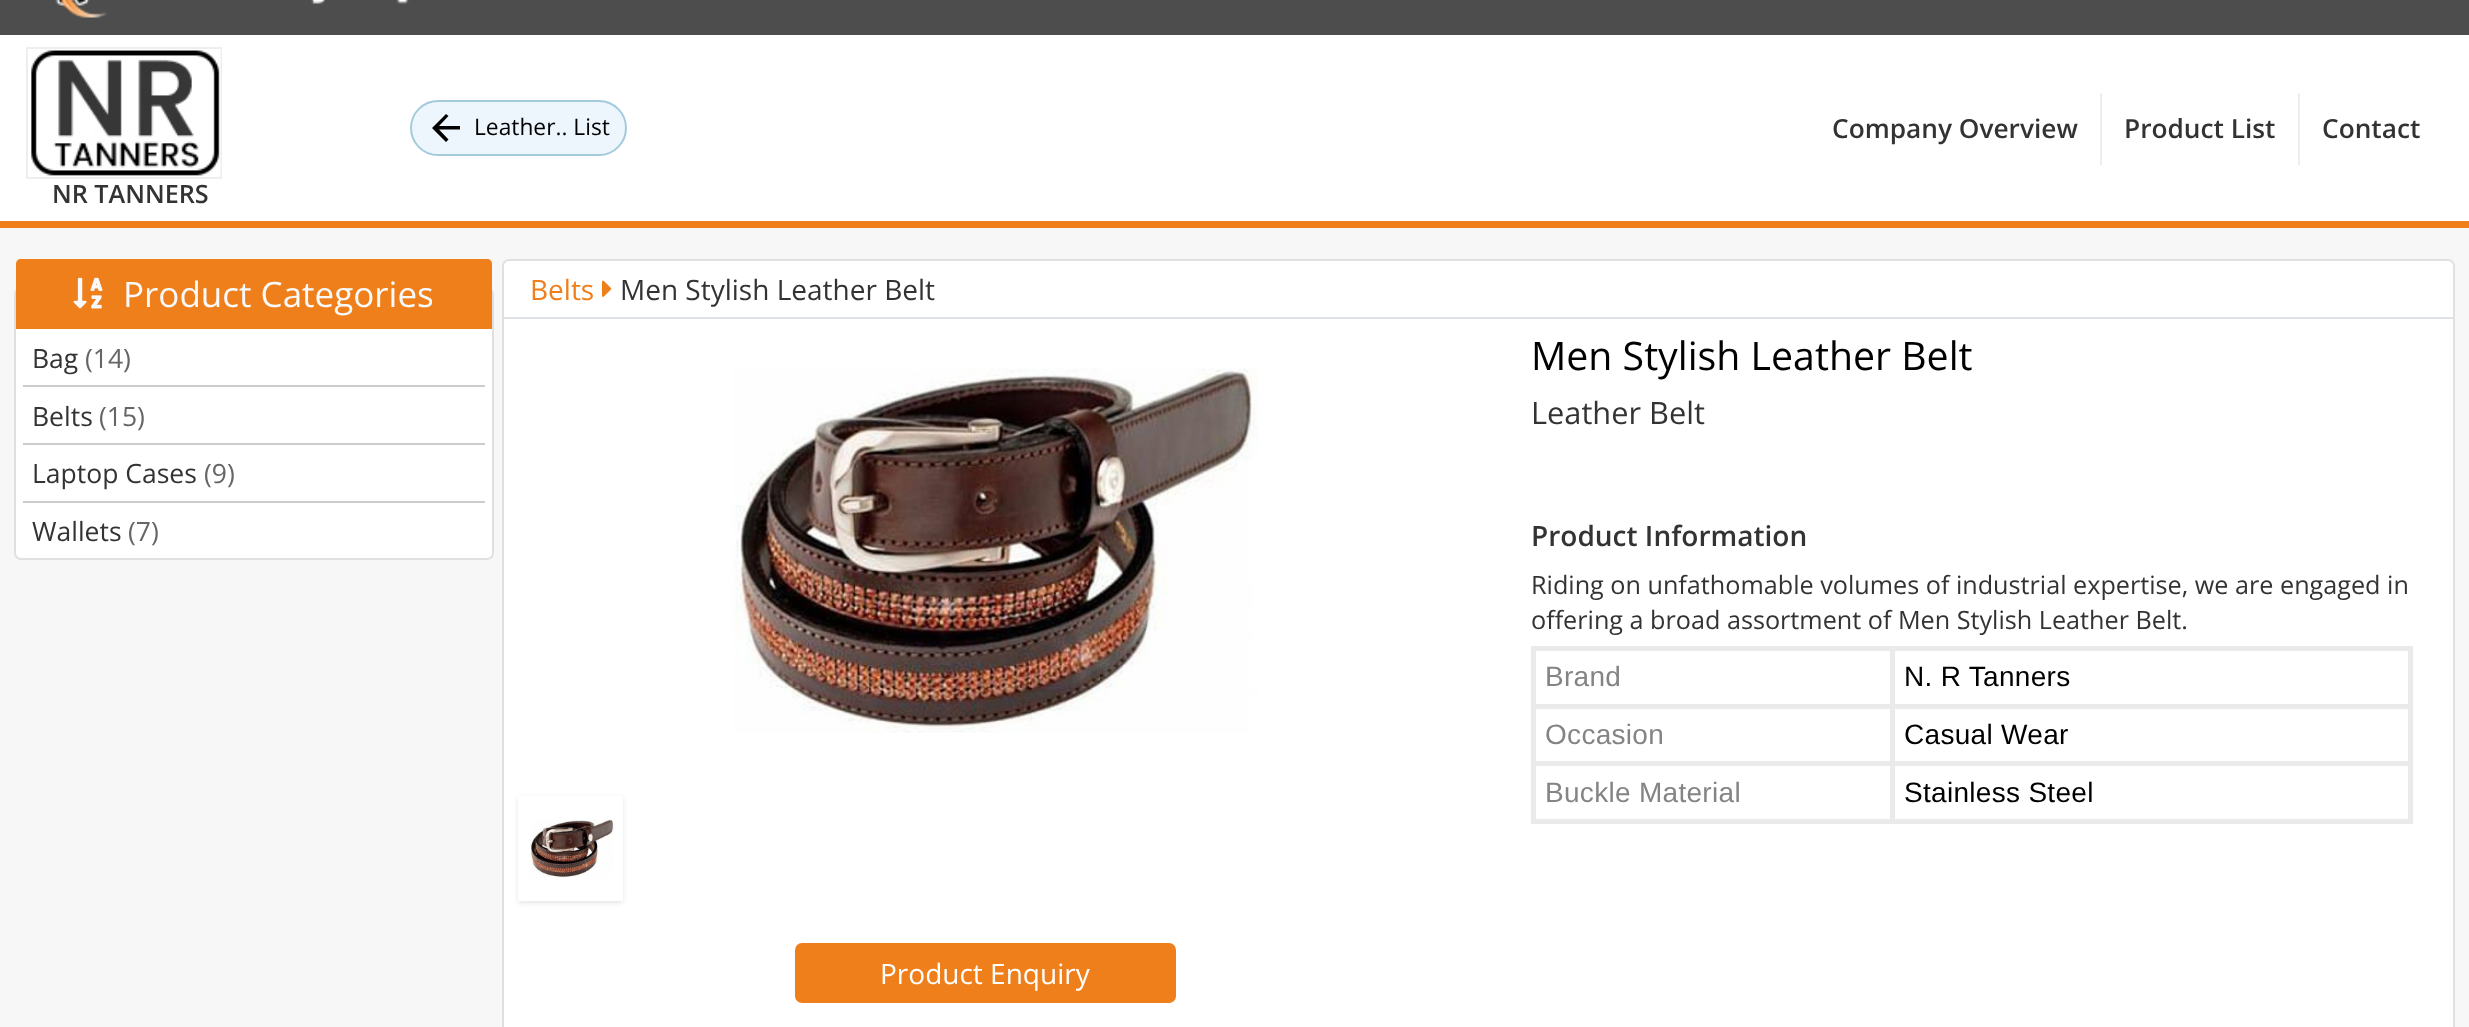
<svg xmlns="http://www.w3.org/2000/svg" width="2469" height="1027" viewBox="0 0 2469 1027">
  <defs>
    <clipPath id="clip1"><path d="M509 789H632V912H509ZM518 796H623V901H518Z" clip-rule="evenodd"/></clipPath>
  </defs>
  <rect width="100%" height="100%" fill="#fff"/>
  <path d="M0 0h2469v35H0z" fill="#4d4d4d"/>
  <image x="55" y="0" width="354" height="18" href="img/1.png"/>
  <path d="M0 221h2469v7H0z" fill="#ef7f1a"/>
  <rect x="411" y="101" width="215" height="54" rx="27" fill="#eef6fd" stroke="#a3cbdd" stroke-width="2"/>
  <path d="M460 126H439L448.5 116L446 114L432 128L446 142L448.5 139.5L439 129.5H460Z" fill="#000"/>
  <path d="M2100 93h2v72H2100z" fill="#eee"/>
  <path d="M2298 93h2v72H2298z" fill="#eee"/>
  <path d="M27 48h194v130H27z" fill="none" stroke="#eee" stroke-width="2"/>
  <image x="31" y="49" width="190" height="128" href="img/2.png"/>
  <path d="M0 228h2469v799H0z" fill="#f7f7f7"/>
  <rect x="14" y="287" width="480" height="273" rx="7" fill="#fff"/>
  <rect x="15" y="288" width="478" height="271" rx="6" fill="none" stroke="#0000001f" stroke-width="2"/>
  <path d="M21 259H487C490 259 492 261 492 264V329H16V264C16 261 18 259 21 259Z" fill="#ef7f1a"/>
  <image x="73" y="277" width="30" height="32" href="img/3.png"/>
  <path d="M23 385h462v2H23z" fill="#ccc"/>
  <path d="M23 443h462v2H23z" fill="#ccc"/>
  <path d="M23 501h462v2H23z" fill="#ccc"/>
  <rect x="502" y="259" width="1953" height="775" rx="7" fill="#fff"/>
  <rect x="503" y="260" width="1951" height="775" rx="6" fill="none" stroke="#0000001f" stroke-width="2"/>
  <path d="M504 317h1950v2H504z" fill="#dee2e6"/>
  <image x="602" y="280" width="10" height="17" href="img/4.png"/>
  <path d="M1890 646h523v5H1890z" fill="#eaeaea"/>
  <path d="M1890 704h523v5H1890z" fill="#eaeaea"/>
  <path d="M1890 761h523v5H1890z" fill="#eaeaea"/>
  <path d="M2408 761h5v63H2408z" fill="#eaeaea"/>
  <path d="M1890 819h523v5H1890z" fill="#eaeaea"/>
  <path d="M1890 761h5v63H1890z" fill="#eaeaea"/>
  <path d="M1531 761h364v5H1531z" fill="#eaeaea"/>
  <path d="M1890 704h5v63H1890z" fill="#eaeaea"/>
  <path d="M1531 704h364v5H1531z" fill="#eaeaea"/>
  <path d="M1890 646h5v63H1890z" fill="#eaeaea"/>
  <path d="M1531 646h364v5H1531z" fill="#eaeaea"/>
  <path d="M1531 819h364v5H1531z" fill="#eaeaea"/>
  <path d="M1531 761h5v63H1531z" fill="#eaeaea"/>
  <path d="M1531 704h5v63H1531z" fill="#eaeaea"/>
  <path d="M1531 646h5v63H1531z" fill="#eaeaea"/>
  <path d="M2408 704h5v63H2408z" fill="#eaeaea"/>
  <path d="M2408 646h5v63H2408z" fill="#eaeaea"/>
  <image x="731" y="368" width="528" height="365" href="img/5.png"/>
  <g clip-path="url(#clip1)">
    <path d="M518 798h105v105H518z" fill="#0000001a" filter="blur(2.5px)"/>
  </g>
  <image x="530" y="819" width="84" height="59" href="img/6.png"/>
  <rect x="795" y="943" width="381" height="60" rx="7" fill="#ef7f1a"/>
  <text x="474" y="135" font-family="Open Sans" font-size="22.75" fill="#000">Leather.. List</text>
  <g font-family="Open Sans" font-size="26.25" font-weight="600" fill="#333">
    <text x="1832" y="138">Company Overview</text>
    <text x="2124" y="138">Product List</text>
    <text x="2322" y="138">Contact</text>
  </g>
  <text x="52" y="203" font-family="Open Sans" font-size="25.2" font-weight="600" fill="#333">NR TANNERS</text>
  <text x="123" y="307" font-family="Open Sans" font-size="35" fill="#f8f9fa">Product Categories</text>
  <text x="32" y="368" font-family="Open Sans" font-size="26.5" fill="#333">Bag</text>
  <text x="85" y="368" font-family="Open Sans" font-size="26.5" fill="#666">(14)</text>
  <text x="32" y="426" font-family="Open Sans" font-size="26.5" fill="#333">Belts</text>
  <text x="99" y="426" font-family="Open Sans" font-size="26.5" fill="#666">(15)</text>
  <text x="32" y="483" font-family="Open Sans" font-size="26.5" fill="#333">Laptop Cases</text>
  <text x="204" y="483" font-family="Open Sans" font-size="26.5" fill="#666">(9)</text>
  <text x="32" y="541" font-family="Open Sans" font-size="26.5" fill="#333">Wallets</text>
  <text x="128" y="541" font-family="Open Sans" font-size="26.5" fill="#666">(7)</text>
  <text x="530" y="300" font-family="Open Sans" font-size="28" fill="#ef7f1a">Belts</text>
  <text x="620" y="300" font-family="Open Sans" font-size="28" fill="#333">Men Stylish Leather Belt</text>
  <text x="1531" y="370" font-family="Open Sans" font-size="39.25" fill="#000">Men Stylish Leather Belt</text>
  <text x="1531" y="424" font-family="Open Sans" font-size="30.75" fill="#333">Leather Belt</text>
  <text x="1531" y="546" font-family="Open Sans" font-size="28" font-weight="600" fill="#333">Product Information</text>
  <g font-family="Open Sans" font-size="25.2" fill="#333">
    <text x="1531" y="594">Riding on unfathomable volumes of industrial expertise, we are engaged in</text>
    <text x="1531" y="629">offering a broad assortment of Men Stylish Leather Belt.</text>
  </g>
  <text x="1545" y="686" font-family="Liberation Sans" font-size="28" letter-spacing="0.3" fill="#848484">Brand</text>
  <text x="1904" y="686" font-family="Liberation Sans" font-size="28" letter-spacing="0.3" fill="#000">N. R Tanners</text>
  <text x="1545" y="744" font-family="Liberation Sans" font-size="28" letter-spacing="0.3" fill="#848484">Occasion</text>
  <text x="1904" y="744" font-family="Liberation Sans" font-size="28" letter-spacing="0.3" fill="#000">Casual Wear</text>
  <text x="1545" y="802" font-family="Liberation Sans" font-size="28" letter-spacing="0.3" fill="#848484">Buckle Material</text>
  <text x="1904" y="802" font-family="Liberation Sans" font-size="28" letter-spacing="0.3" fill="#000">Stainless Steel</text>
  <text x="880" y="984" font-family="Open Sans" font-size="28" fill="#fff">Product Enquiry</text>
</svg>
